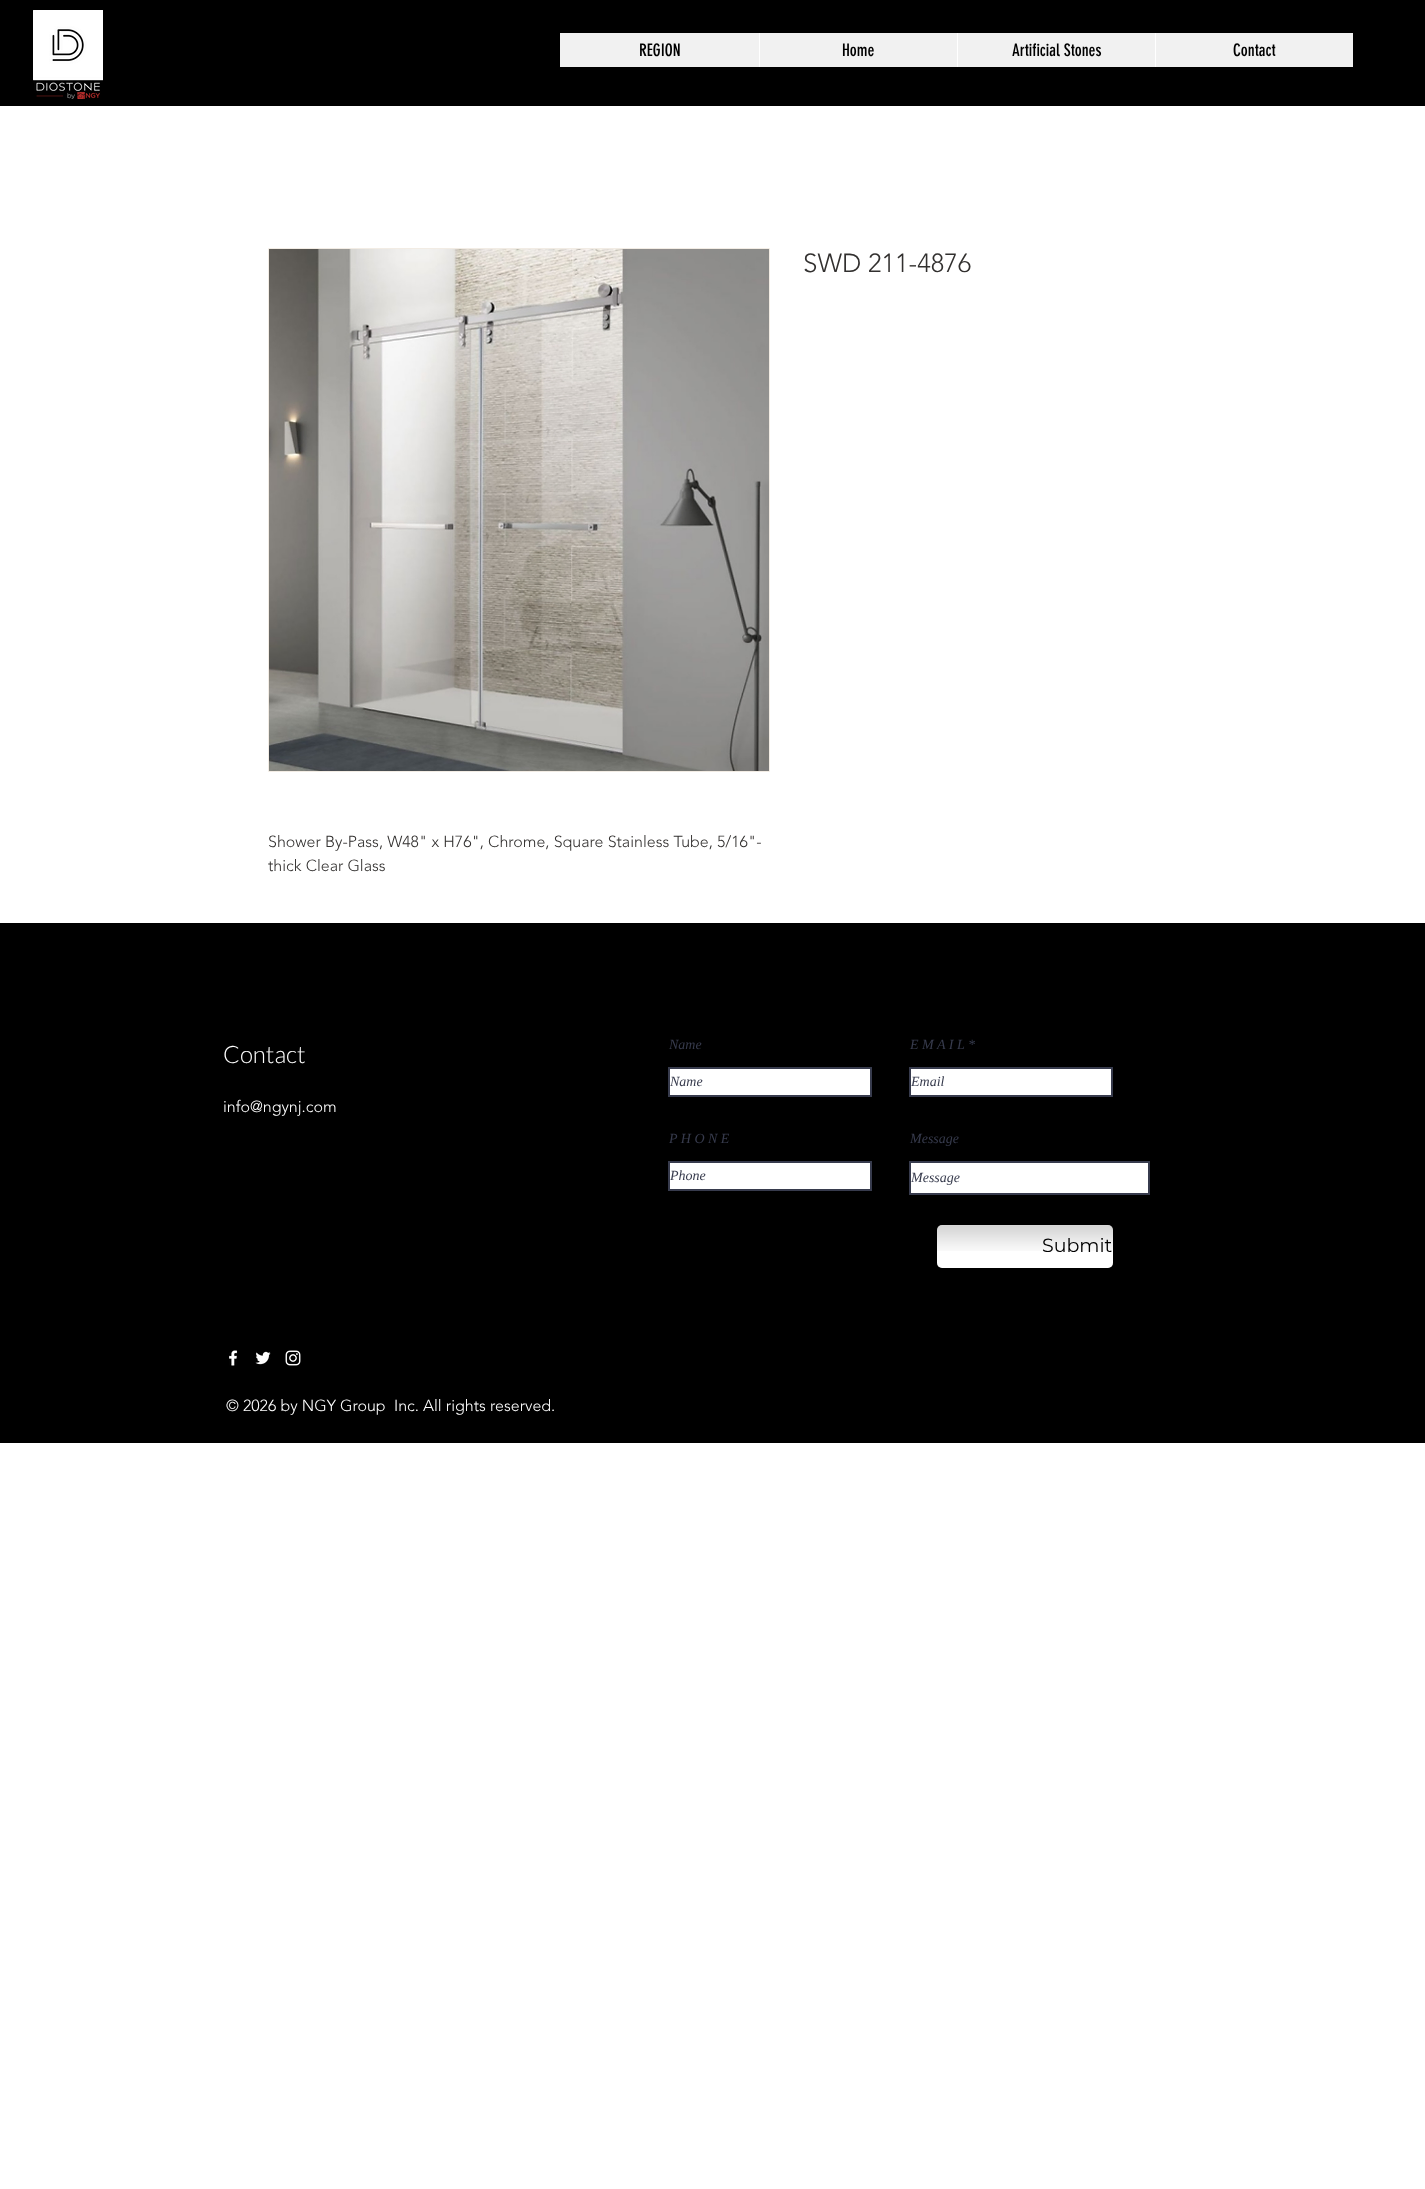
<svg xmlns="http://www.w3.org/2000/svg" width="1425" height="2189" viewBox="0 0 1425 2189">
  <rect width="100%" height="100%" fill="#fff"/>
  <path d="M0 0h1425v106H0z" fill="#000"/>
  <image x="33" y="10" width="70" height="89" href="img/1.png"/>
  <path d="M560 33h793v34H560z" fill="#f1f1f1"/>
  <path d="M759 33h1v34H759z" fill="#fff"/>
  <path d="M957 33h1v34H957z" fill="#fff"/>
  <path d="M1155 33h1v34H1155z" fill="#fff"/>
  <path d="M268.5 248.5h501v523H268.5z" fill="none" stroke="#f2ece4"/>
  <image x="269" y="249" width="500" height="522" href="img/2.png"/>
  <path d="M0 923h1425v520H0z" fill="#000"/>
  <path d="M669 1068h202v28H669z" fill="#fff" stroke="#373b4d" stroke-width="2"/>
  <path d="M910 1068h202v28H910z" fill="#fff" stroke="#373b4d" stroke-width="2"/>
  <path d="M669 1162h202v28H669z" fill="#fff" stroke="#373b4d" stroke-width="2"/>
  <path d="M910 1162h239v32H910z" fill="#fff" stroke="#373b4d" stroke-width="2"/>
  <rect x="937" y="1225" width="176" height="43" rx="5" fill="#fff"/>
  <image x="937" y="1225" width="176" height="26" href="img/3.png"/>
  <image x="937" y="1264" width="176" height="4" href="img/4.png"/>
  <image x="229" y="1350" width="9" height="16" href="img/5.png"/>
  <image x="255" y="1351" width="16" height="14" href="img/6.png"/>
  <image x="285" y="1350" width="16" height="16" href="img/7.png"/>
  <g font-family="'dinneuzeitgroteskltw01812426'" font-size="17" fill="#000">
    <text x="639" y="56">REGION</text>
    <text x="842" y="56">Home</text>
    <text x="1012" y="56">Artificial Stones</text>
    <text x="1233" y="56">Contact</text>
  </g>
  <text x="803" y="272" font-family="'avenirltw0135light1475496'" font-size="26" font-weight="300" fill="#32302f">SWD 211-4876</text>
  <g font-family="'avenirltw0135light1475496'" font-size="16" font-weight="300" fill="#32302f">
    <text x="268" y="847">Shower By-Pass, W48" x H76", Chrome, Square Stainless Tube, 5/16"-</text>
    <text x="268" y="871">thick Clear Glass</text>
  </g>
  <text x="223" y="1063" font-family="Lato" font-size="24" font-weight="300" fill="#fff">Contact</text>
  <g font-family="Liberation Serif" font-size="14" font-style="italic" fill="#373b4d">
    <text x="669" y="1049">Name</text>
    <text x="670" y="1086">Name</text>
    <text x="910" y="1049">E M A I L *</text>
    <text x="911" y="1086">Email</text>
    <text x="669" y="1143">P H O N E</text>
    <text x="670" y="1180">Phone</text>
    <text x="910" y="1143">Message</text>
    <text x="911" y="1182">Message</text>
  </g>
  <text x="1042" y="1252" font-family="Montserrat" font-size="19" fill="#000">Submit</text>
  <g font-family="'avenirltw0135light1475496'" font-size="16" font-weight="300" fill="#fff">
    <text x="223" y="1112">info@ngynj.com</text>
    <text x="226" y="1411" xml:space="preserve">© 2026 by NGY Group  Inc. All rights reserved.</text>
  </g>
</svg>
